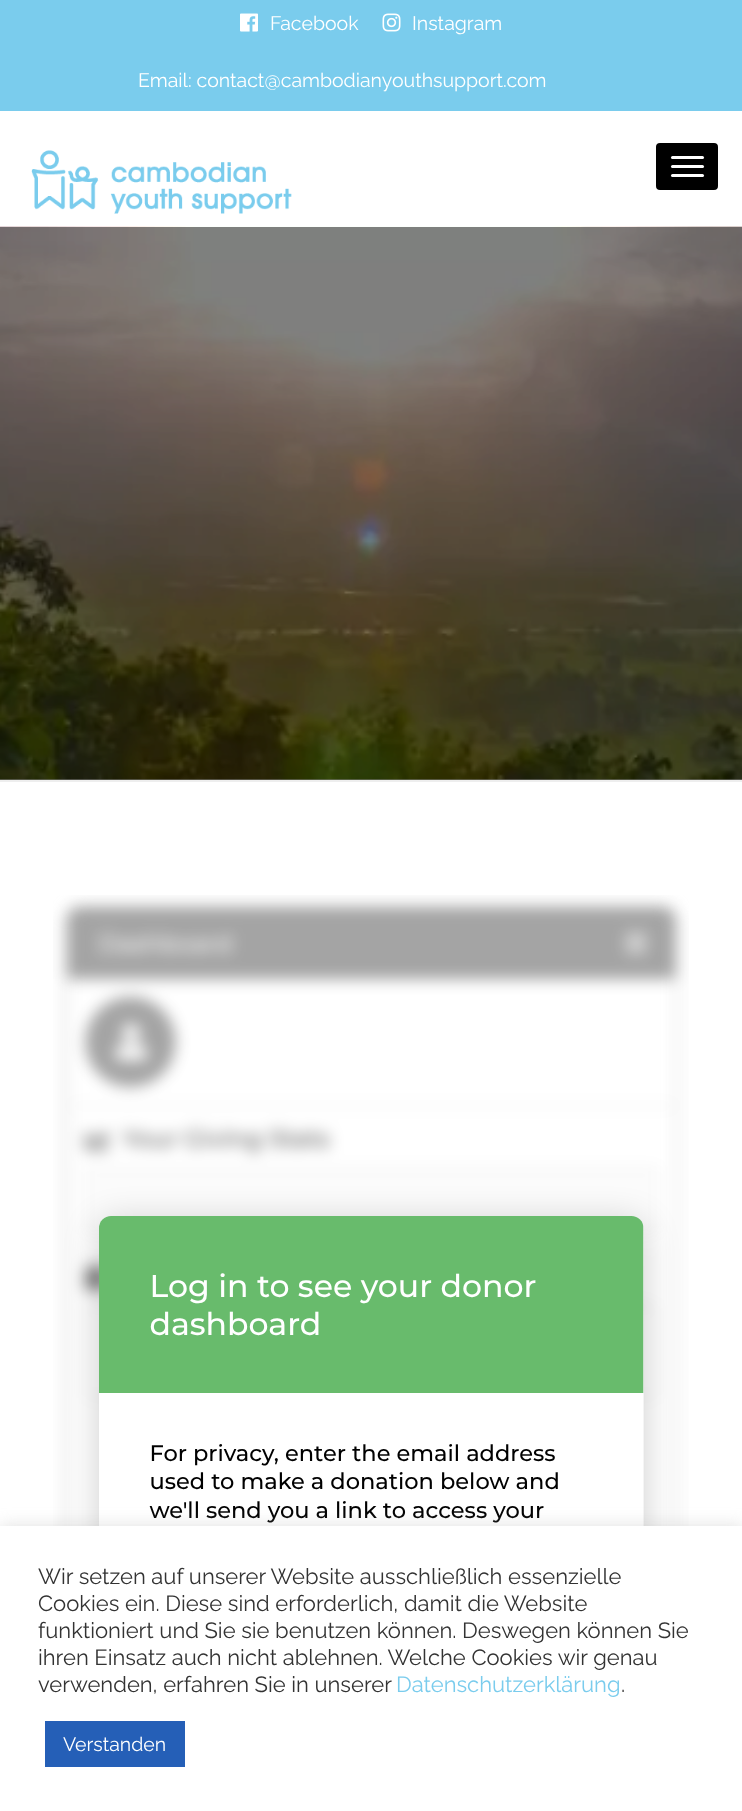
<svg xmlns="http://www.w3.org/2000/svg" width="742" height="1811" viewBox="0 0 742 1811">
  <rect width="100%" height="100%" fill="#fff"/>
  <path d="M0 779h742v1H0z" fill="#808080"/>
  <path d="M0 780h742v2H0z" fill="#eee"/>
  <path d="M0 0h742v111H0z" fill="#7acced"/>
  <image x="240" y="13" width="18" height="19" href="img/1.png"/>
  <image x="382" y="13" width="19" height="19" href="img/2.png"/>
  <image x="31" y="150" width="261" height="64" href="img/3.png"/>
  <rect x="655" y="142" width="64" height="49" rx="5" fill="#000" stroke="#fff" stroke-width="2"/>
  <rect x="671" y="156" width="33" height="3" rx="1.5" fill="#fff"/>
  <rect x="671" y="165" width="33" height="3" rx="1.5" fill="#fff"/>
  <rect x="671" y="174" width="33" height="3" rx="1.5" fill="#fff"/>
  <image x="0" y="226" width="742" height="554" href="img/4.png"/>
  <image x="53" y="895" width="636" height="631" href="img/5.png"/>
  <path d="M0 1524h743v287H0z" fill="#acabab4d" filter="blur(7.5px)"/>
  <path d="M0 1526h742v285H0z" fill="#fff"/>
  <path d="M45 1721h140v46H45z" fill="#255fb7"/>
  <g font-family="Raleway" font-size="19.5" fill="#fff">
    <text x="270" y="30">Facebook</text>
    <text x="412" y="30">Instagram</text>
    <text x="138" y="87">Email: contact@cambodianyouthsupport.com</text>
  </g>
  <g font-family="Raleway" font-size="22" fill="#333">
    <text x="38" y="1584">Wir setzen auf unserer Website ausschließlich essenzielle</text>
    <text x="38" y="1611">Cookies ein. Diese sind erforderlich, damit die Website</text>
    <text x="38" y="1638">funktioniert und Sie sie benutzen können. Deswegen können Sie</text>
    <text x="38" y="1665">ihren Einsatz auch nicht ablehnen. Welche Cookies wir genau</text>
    <text x="38" y="1692">verwenden, erfahren Sie in unserer</text>
  </g>
  <text x="396" y="1692" font-family="Raleway" font-size="22" fill="#7acced">Datenschutzerklärung</text>
  <text x="621" y="1692" font-family="Raleway" font-size="22" fill="#333">.</text>
  <text x="63" y="1751" font-family="Raleway" font-size="19.5" fill="#fff">Verstanden</text>
</svg>
